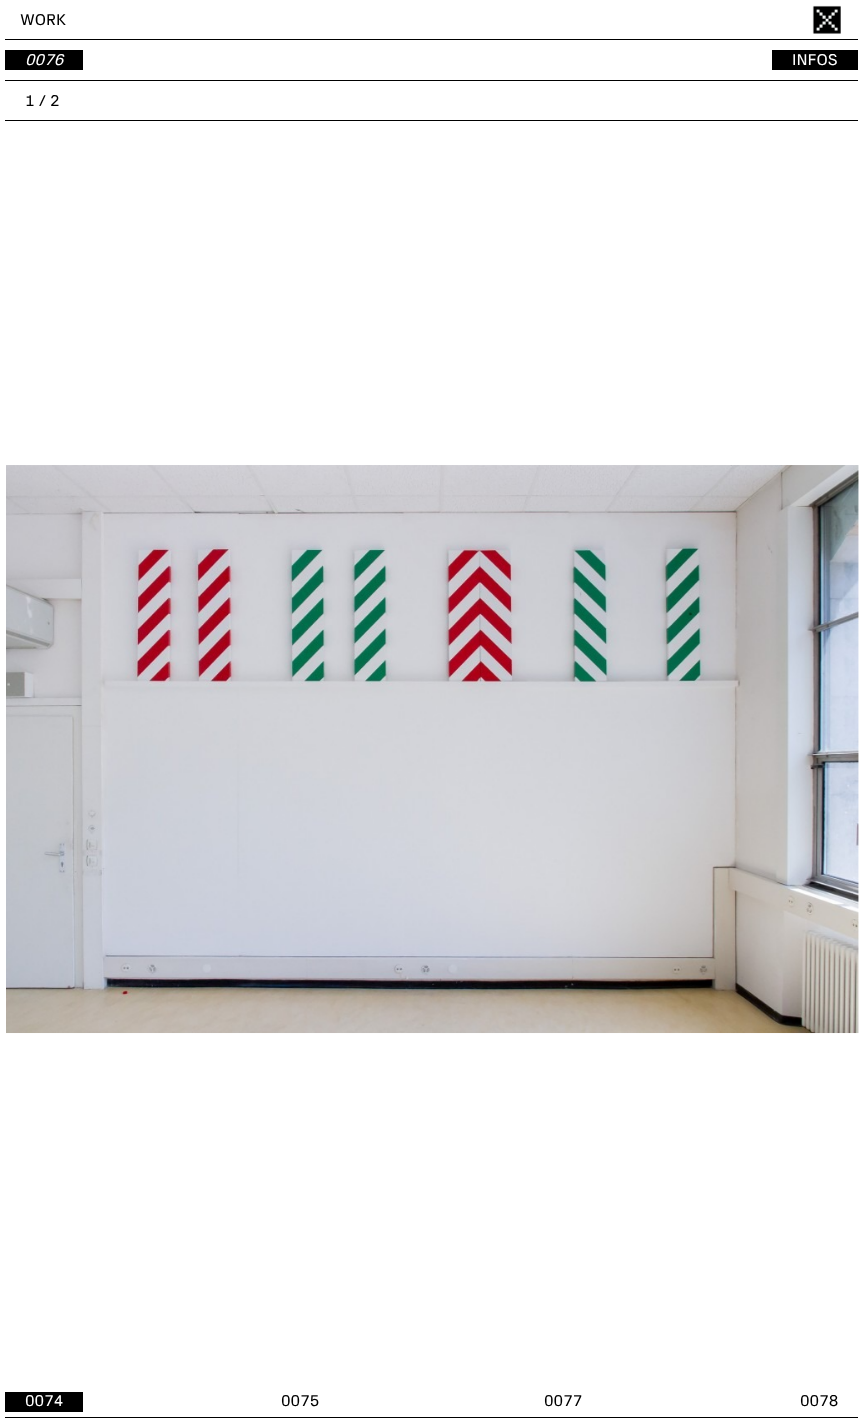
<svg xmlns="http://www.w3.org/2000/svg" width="863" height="1423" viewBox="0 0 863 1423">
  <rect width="100%" height="100%" fill="#fff"/>
  <path d="M5 1417h853v1H5z" fill="#000"/>
  <path d="M5 39h853v1H5z" fill="#000"/>
  <image x="812" y="5" width="29" height="29" href="img/1.png"/>
  <path d="M5 50h78v20H5z" fill="#000"/>
  <path d="M772 50h86v20H772z" fill="#000"/>
  <path d="M5 120h853v1H5z" fill="#000"/>
  <path d="M5 80h853v1H5z" fill="#000"/>
  <image x="6" y="465" width="853" height="569" href="img/2.png"/>
  <path d="M5 1392h78v20H5z" fill="#000"/>
  <text x="20" y="25" font-family="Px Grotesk" font-size="16" fill="#000">WORK</text>
  <text x="25" y="65" font-family="Px Grotesk" font-size="16" font-style="italic" fill="#fff">0076</text>
  <text x="792" y="65" font-family="Px Grotesk" font-size="16" fill="#fff">INFOS</text>
  <text x="25" y="106" font-family="Px Grotesk" font-size="16" fill="#000">1 / 2</text>
  <text x="25" y="1406" font-family="Px Grotesk" font-size="16" fill="#fff">0074</text>
  <g font-family="Px Grotesk" font-size="16" fill="#000">
    <text x="281" y="1406">0075</text>
    <text x="544" y="1406">0077</text>
    <text x="800" y="1406">0078</text>
  </g>
</svg>
